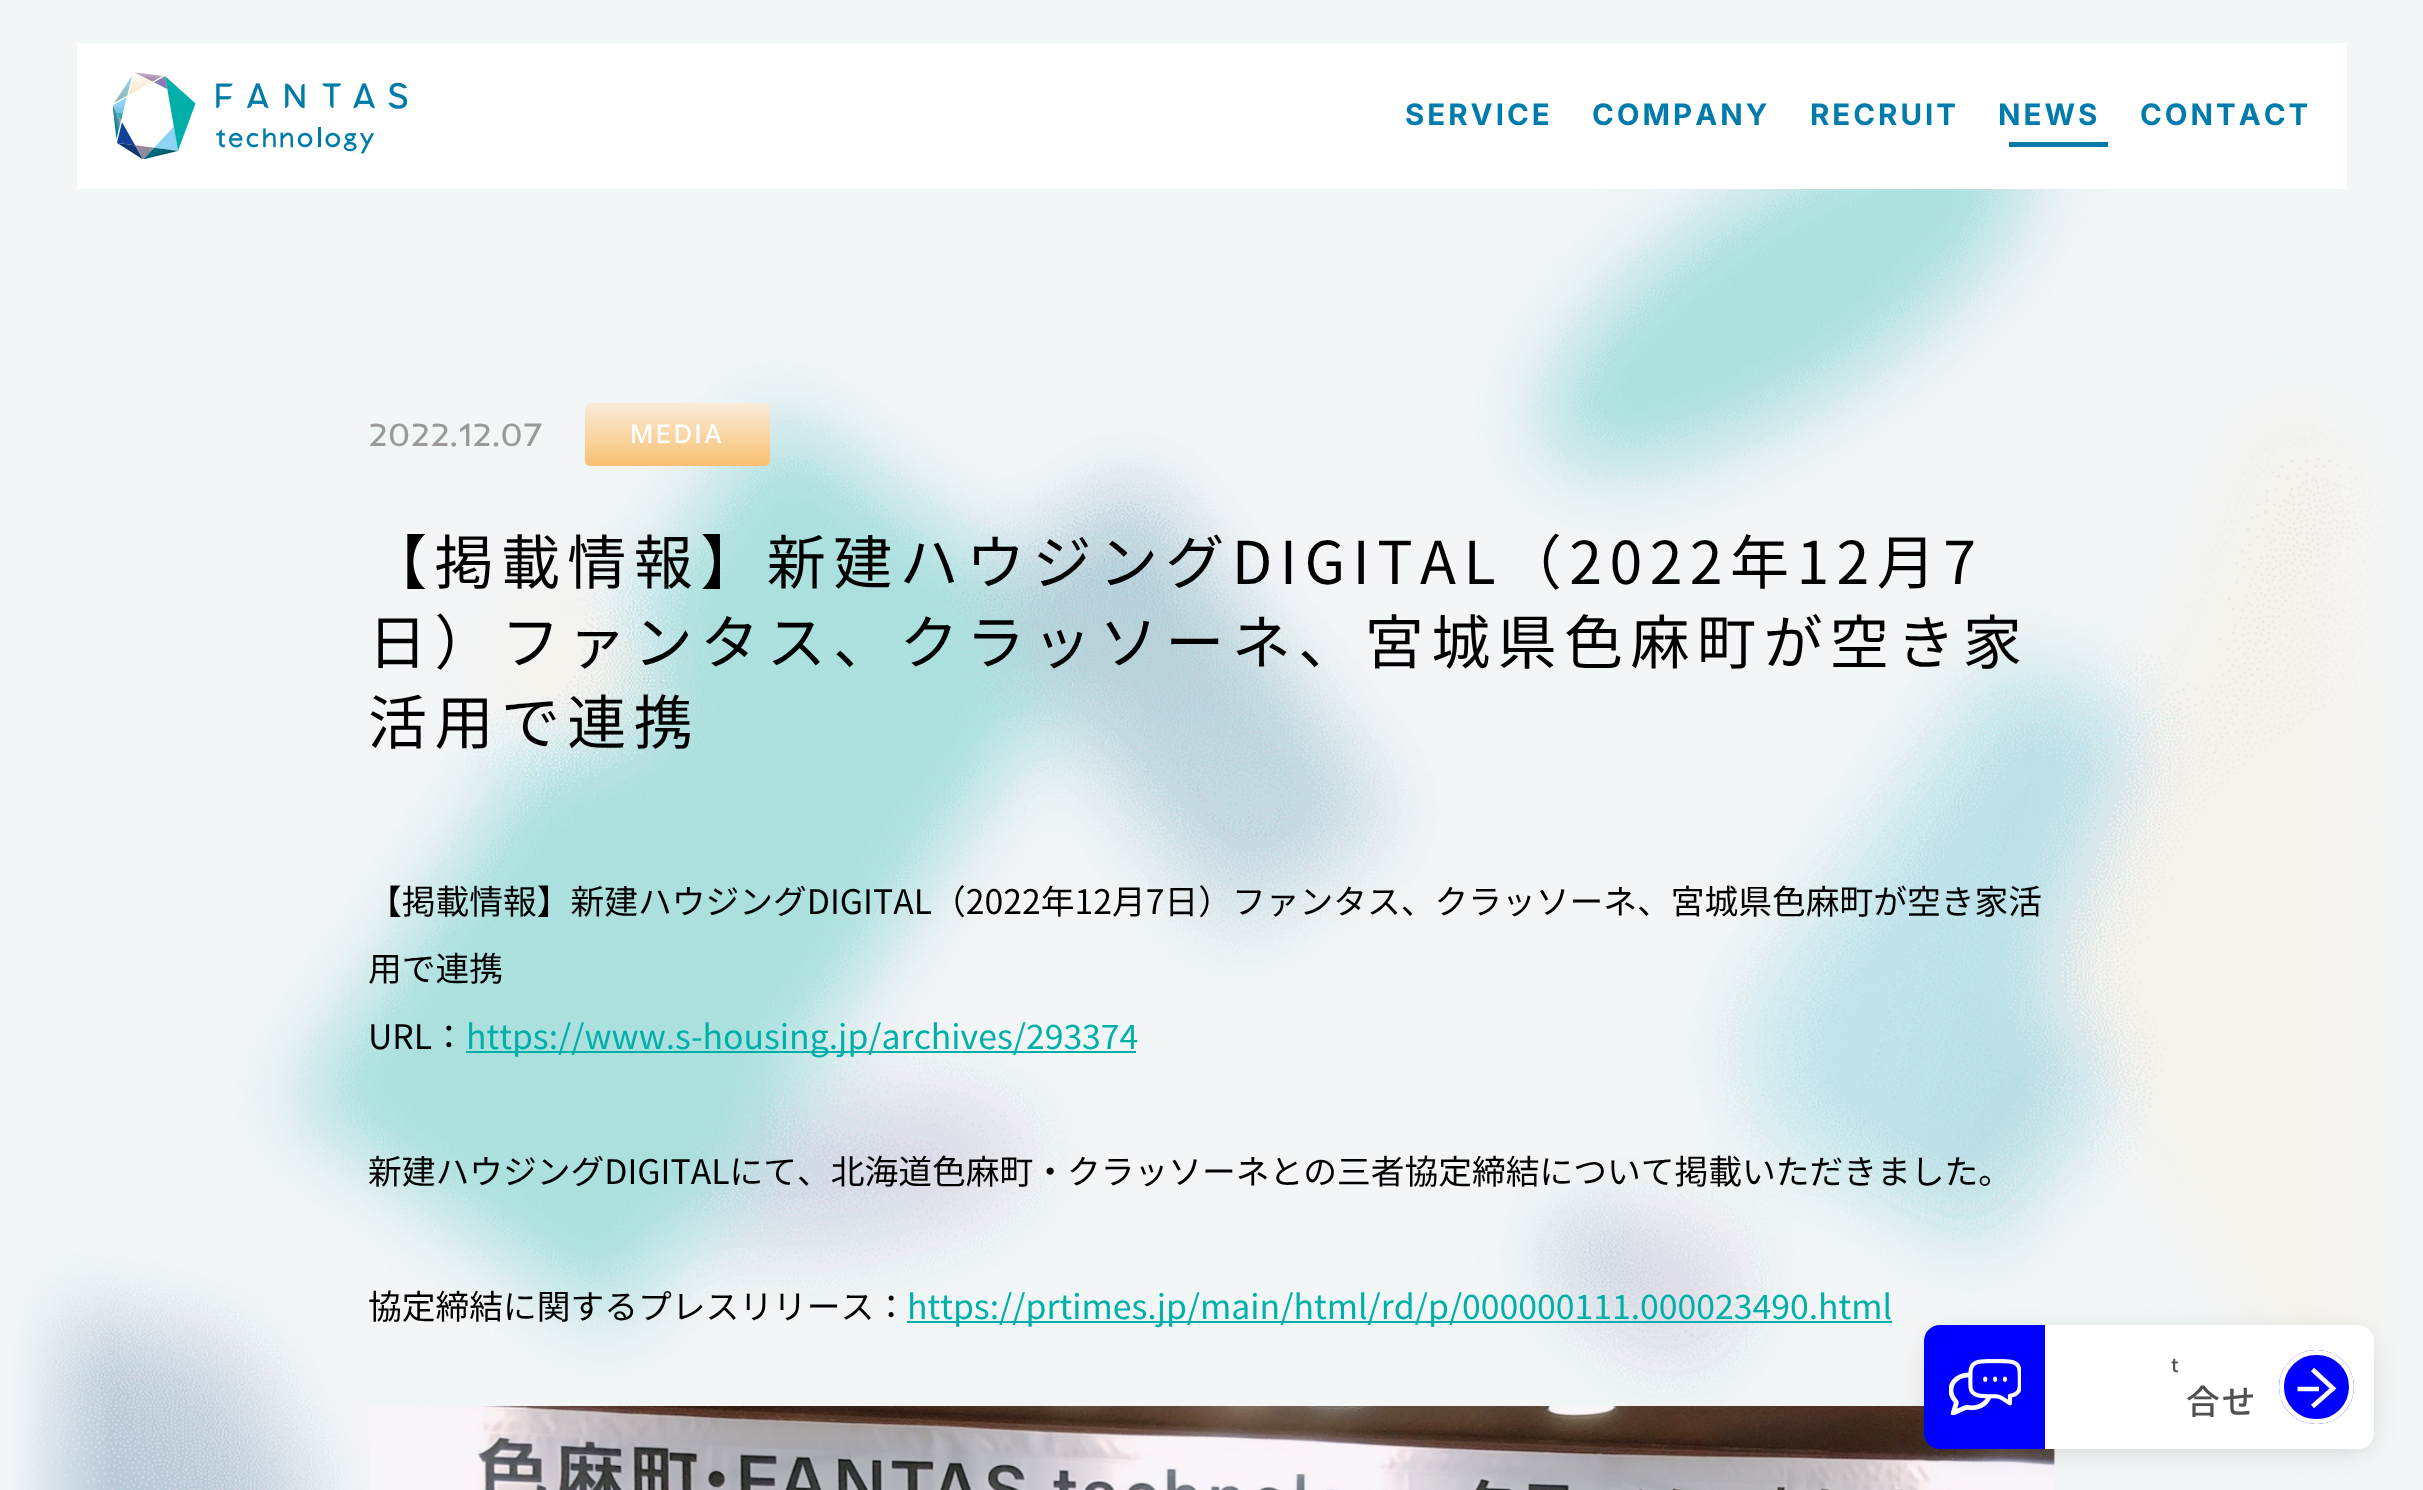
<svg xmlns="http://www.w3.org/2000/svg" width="2423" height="1490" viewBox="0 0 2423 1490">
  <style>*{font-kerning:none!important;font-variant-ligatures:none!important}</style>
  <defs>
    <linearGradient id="g1" gradientUnits="userSpaceOnUse" x1="2080" y1="1363" x2="2257" y2="1363"><stop offset="0.5" stop-color="#fff"/><stop offset="0.5" stop-color="#505050"/></linearGradient>
    <linearGradient id="g2" gradientUnits="userSpaceOnUse" x1="2080" y1="1399" x2="2257" y2="1399"><stop offset="0.5" stop-color="#fff"/><stop offset="0.5" stop-color="#505050"/></linearGradient>
    <linearGradient id="g3" gradientUnits="userSpaceOnUse" x1="-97" y1="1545" x2="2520" y2="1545"><stop offset="0" stop-color="#f3f6f7"/><stop offset="0.04" stop-color="#f3f6f7"/><stop offset="0.08" stop-color="#f3f6f7" stop-opacity="0"/><stop offset="0.92" stop-color="#f3f6f7" stop-opacity="0"/><stop offset="0.96" stop-color="#f3f6f7"/><stop offset="1" stop-color="#f3f6f7"/></linearGradient>
    <linearGradient id="g4" gradientUnits="userSpaceOnUse" x1="677" y1="403" x2="677" y2="466"><stop offset="0" stop-color="#f9ecda"/><stop offset="1" stop-color="#f9c071"/></linearGradient>
  </defs>
  <rect width="100%" height="100%" fill="#f3f6f7"/>
  <path d="M77 43h2270v146H77z" fill="#fff"/>
  <image x="113" y="72" width="294" height="87" href="img/1.png"/>
  <path d="M2009 142h99v5H2009z" fill="#007bab"/>
  <image x="8" y="189" width="2407" height="1301" href="img/2.png"/>
  <path d="M8 387h2407v1103H8z" fill="url(#g3)"/>
  <rect x="585" y="403" width="185" height="63" rx="5" fill="url(#g4)"/>
  <path d="M466 1051h670v2H466z" fill="#00b0a8"/>
  <path d="M907 1321h985v2H907z" fill="#00b0a8"/>
  <image x="369" y="1406" width="1686" height="84" href="img/3.png"/>
  <rect x="1933" y="1339" width="432" height="106" rx="9" fill="#00000033" filter="blur(15px)"/>
  <path d="M1940 1325H2045V1449H1940C1931 1449 1924 1442 1924 1433V1341C1924 1332 1931 1325 1940 1325Z" fill="#00f"/>
  <image x="1949" y="1359" width="72" height="56" href="img/4.png"/>
  <path d="M2045 1325H2358C2367 1325 2374 1332 2374 1341V1433C2374 1442 2367 1449 2358 1449H2045Z" fill="#fff"/>
  <rect x="2279" y="1350" width="75" height="74" rx="37" fill="#00f"/>
  <path d="M2319 1389H2297.5M2312.5 1369.5L2333 1388.5L2312.5 1406.5" fill="none" stroke="#fff" stroke-width="4.6"/>
  <rect x="2281.5" y="1352.5" width="70" height="69" rx="34.5" fill="none" stroke="#fff" stroke-width="5"/>
  <g font-family="Inter" font-size="29.5" font-weight="bold" letter-spacing="3" fill="#007bab">
    <text x="1405" y="125">SERVICE</text>
    <text x="1592" y="125">COMPANY</text>
    <text x="1810" y="125">RECRUIT</text>
    <text x="1998" y="125">NEWS</text>
    <text x="2140" y="125">CONTACT</text>
  </g>
  <text x="368" y="446" font-family="Inder" font-size="33.75" fill="#9c9999">2022.12.07</text>
  <text x="630" y="443" font-family="Inter" font-size="25.5" font-weight="500" letter-spacing="2.5" fill="#fff">MEDIA</text>
  <g font-family="Noto Sans JP" font-size="59.05" letter-spacing="7.4" fill="#000">
    <text x="368" y="584">【掲載情報】新建ハウジングDIGITAL（2022年12月7</text>
    <text x="368" y="664">日）ファンタス、クラッソーネ、宮城県色麻町が空き家</text>
    <text x="368" y="744">活用で連携</text>
  </g>
  <g font-family="Noto Sans JP" font-size="33.75" fill="#000">
    <text x="368" y="914">【掲載情報】新建ハウジングDIGITAL（2022年12月7日）ファンタス、クラッソーネ、宮城県色麻町が空き家活</text>
    <text x="368" y="981">用で連携</text>
    <text x="368" y="1049">URL：</text>
  </g>
  <text x="466" y="1049" font-family="Noto Sans JP" font-size="33.75" fill="#00b0a8">https://www.s-housing.jp/archives/293374</text>
  <g font-family="Noto Sans JP" font-size="33.75" fill="#000">
    <text x="368" y="1184">新建ハウジングDIGITALにて、北海道色麻町・クラッソーネとの三者協定締結について掲載いただきました。</text>
    <text x="368" y="1319">協定締結に関するプレスリリース：</text>
  </g>
  <text x="907" y="1319" font-family="Noto Sans JP" font-size="33.75" fill="#00b0a8">https://prtimes.jp/main/html/rd/p/000000111.000023490.html</text>
  <text x="2171" y="1372" font-family="Noto Sans JP" font-size="19" font-weight="500" letter-spacing="5" fill="url(#g1)">t</text>
  <text x="2186" y="1414" font-family="Noto Sans JP" font-size="33.75" font-weight="500" letter-spacing="2" fill="url(#g2)">合せ</text>
</svg>
